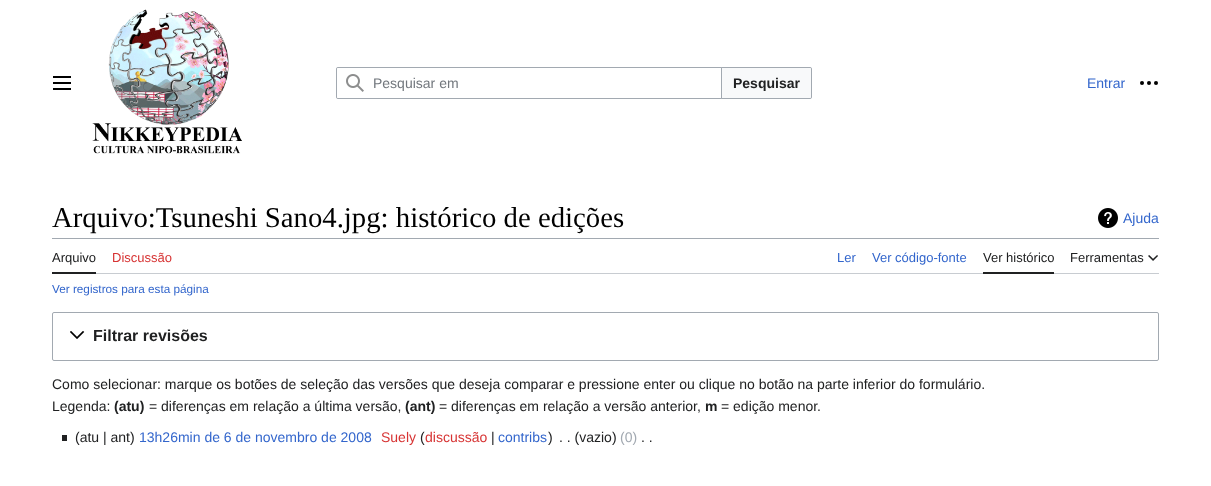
<svg xmlns="http://www.w3.org/2000/svg" width="1211" height="486" viewBox="0 0 1211 486">
  <rect width="100%" height="100%" fill="#fff"/>
  <image x="53" y="76" width="18" height="14" href="img/1.png"/>
  <image x="92" y="9" width="150" height="145" href="img/2.png"/>
  <rect x="336.5" y="67.5" width="475" height="31" rx="1.5" fill="none" stroke="#a2a9b1"/>
  <path d="M721.5 67.5H810C811 67.5 811.5 68 811.5 69V97C811.5 98 811 98.5 810 98.5H721.5Z" fill="#f8f9fa" stroke="#a2a9b1"/>
  <path d="M338 67.5H721.5V98.5H338C337 98.5 336.5 98 336.5 97V69C336.5 68 337 67.5 338 67.5Z" fill="#fff" stroke="#a2a9b1"/>
  <image x="346" y="74" width="18" height="18" href="img/3.png"/>
  <image x="1140" y="81" width="18" height="4" href="img/4.png"/>
  <path d="M52 238h1107v1H52z" fill="#a2a9b1"/>
  <image x="1098" y="208" width="20" height="20" href="img/5.png"/>
  <path d="M96 273h1063v1H96z" fill="#c8ccd1"/>
  <path d="M52 272h44v2H52z" fill="#202122"/>
  <path d="M983 272h71v2H983z" fill="#202122"/>
  <image x="1148" y="255" width="10" height="6" href="img/6.png"/>
  <rect x="52.5" y="312.5" width="1106" height="48" rx="1.5" fill="none" stroke="#a2a9b1"/>
  <image x="70" y="331" width="15" height="8" href="img/7.png"/>
  <path d="M62 435h5v6H62z" fill="#202122"/>
  <text x="373" y="88" font-family="Liberation Sans" font-size="14" fill="#72777d">Pesquisar em</text>
  <text x="733" y="88" font-family="Liberation Sans" font-size="14" font-weight="bold" fill="#202122">Pesquisar</text>
  <text x="1087" y="88" font-family="Liberation Sans" font-size="14" fill="#36c">Entrar</text>
  <text x="52" y="227" font-family="Liberation Serif" font-size="28.75" fill="#000">Arquivo:Tsuneshi Sano4.jpg: histórico de edições</text>
  <text x="1123" y="223" font-family="Liberation Sans" font-size="14" fill="#36c">Ajuda</text>
  <text x="52" y="262" font-family="Liberation Sans" font-size="13" fill="#202122">Arquivo</text>
  <text x="112" y="262" font-family="Liberation Sans" font-size="13" fill="#d73333">Discussão</text>
  <g font-family="Liberation Sans" font-size="13" fill="#36c">
    <text x="837" y="262">Ler</text>
    <text x="872" y="262">Ver código-fonte</text>
  </g>
  <g font-family="Liberation Sans" font-size="13" fill="#202122">
    <text x="983" y="262">Ver histórico</text>
    <text x="1070" y="262">Ferramentas</text>
  </g>
  <text x="52" y="293" font-family="Liberation Sans" font-size="11.75" fill="#36c">Ver registros para esta página</text>
  <text x="93" y="341" font-family="Liberation Sans" font-size="16" font-weight="bold" fill="#202122">Filtrar revisões</text>
  <g font-family="Liberation Sans" font-size="14" fill="#202122">
    <text x="52" y="389">Como selecionar: marque os botões de seleção das versões que deseja comparar e pressione enter ou clique no botão na parte inferior do formulário.</text>
    <text x="52" y="411">Legenda:</text>
  </g>
  <text x="114" y="411" font-family="Liberation Sans" font-size="14" font-weight="bold" fill="#202122">(atu)</text>
  <text x="149" y="411" font-family="Liberation Sans" font-size="14" fill="#202122">= diferenças em relação a última versão,</text>
  <text x="405" y="411" font-family="Liberation Sans" font-size="14" font-weight="bold" fill="#202122">(ant)</text>
  <text x="439" y="411" font-family="Liberation Sans" font-size="14" fill="#202122">= diferenças em relação a versão anterior,</text>
  <text x="705" y="411" font-family="Liberation Sans" font-size="14" font-weight="bold" fill="#202122">m</text>
  <g font-family="Liberation Sans" font-size="14" fill="#202122">
    <text x="721" y="411">= edição menor.</text>
    <text x="75" y="442">(atu | ant)</text>
  </g>
  <text x="139" y="442" font-family="Liberation Sans" font-size="14" fill="#36c">13h26min de 6 de novembro de 2008</text>
  <text x="381" y="442" font-family="Liberation Sans" font-size="14" fill="#d73333">Suely</text>
  <text x="420" y="442" font-family="Liberation Sans" font-size="14" fill="#202122">(</text>
  <text x="425" y="442" font-family="Liberation Sans" font-size="14" fill="#d73333">discussão</text>
  <text x="491" y="442" font-family="Liberation Sans" font-size="14" fill="#202122">|</text>
  <text x="498" y="442" font-family="Liberation Sans" font-size="14" fill="#36c">contribs</text>
  <g font-family="Liberation Sans" font-size="14" fill="#202122">
    <text x="548" y="442">)</text>
    <text x="559" y="442">. . (vazio)</text>
  </g>
  <text x="620" y="442" font-family="Liberation Sans" font-size="14" fill="#a2a9b1">(0)</text>
  <text x="641" y="442" font-family="Liberation Sans" font-size="14" fill="#202122">. .</text>
</svg>
